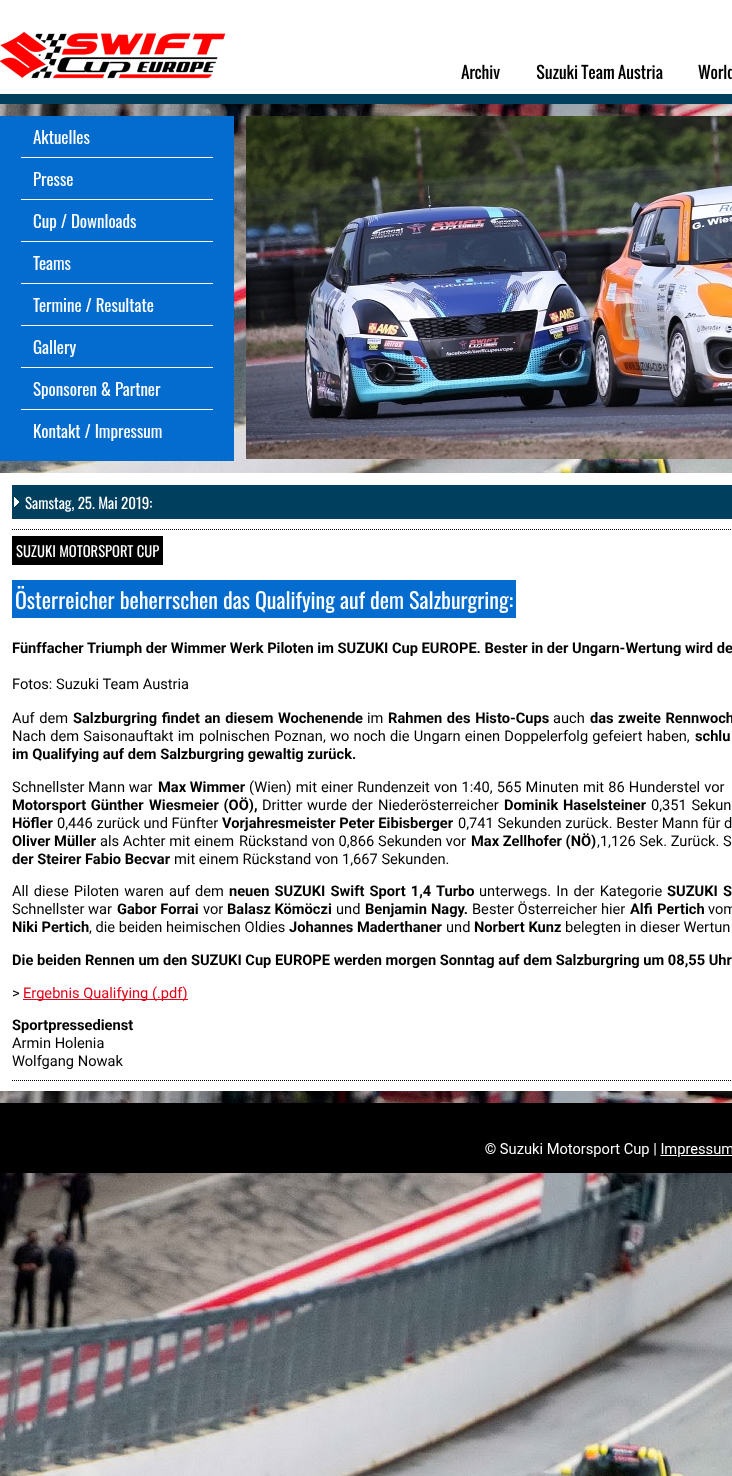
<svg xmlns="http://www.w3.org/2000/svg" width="732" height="1476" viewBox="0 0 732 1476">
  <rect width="100%" height="100%" fill="#fff"/>
  <image x="0" y="104" width="732" height="1372" href="img/1.png"/>
  <image x="0" y="0" width="732" height="104" href="img/2.png"/>
  <image x="0" y="32" width="226" height="47" href="img/3.png"/>
  <image x="461" y="64" width="39" height="16" href="img/4.png"/>
  <image x="536" y="64" width="127" height="16" href="img/5.png"/>
  <image x="698" y="64" width="34" height="16" href="img/6.png"/>
  <path d="M0 116h234v345H0z" fill="#046cce"/>
  <image x="21" y="130" width="192" height="311" href="img/7.png"/>
  <image x="246" y="116" width="486" height="343" href="img/8.png"/>
  <path d="M0 473h732v618H0z" fill="#fff"/>
  <path d="M12 485h720v34H12z" fill="#003f5e"/>
  <image x="14" y="497" width="5" height="10" href="img/9.png"/>
  <image x="12" y="529" width="719" height="1" href="img/10.png"/>
  <path d="M12 536h151v29H12z" fill="#000"/>
  <path d="M12 580h504v38H12z" fill="#046cce"/>
  <path d="M23 999h165v1H23z" fill="#e2021a"/>
  <image x="12" y="1080" width="719" height="1" href="img/10.png"/>
  <path d="M0 1103h732v70H0z" fill="#000"/>
  <image x="485" y="1143" width="247" height="14" href="img/11.png"/>
  <text x="25" y="509" font-family="Oswald" font-size="15" fill="#fff">Samstag, 25. Mai 2019:</text>
  <text x="16" y="557" font-family="Oswald" font-size="14.65" fill="#fff">SUZUKI MOTORSPORT CUP</text>
  <text x="15" y="609" font-family="Oswald" font-size="22" fill="#fff">Österreicher beherrschen das Qualifying auf dem Salzburgring:</text>
  <text x="12" y="653" font-family="Roboto" font-size="14.65" font-weight="bold" fill="#000">Fünffacher Triumph der Wimmer Werk Piloten im SUZUKI Cup EUROPE. Bester in der Ungarn-Wertung wird de</text>
  <g font-family="Roboto" font-size="14.65" fill="#000">
    <text x="12" y="689">Fotos: Suzuki Team Austria</text>
    <text x="12" y="723" word-spacing="1">Auf dem</text>
  </g>
  <text x="73" y="723" word-spacing="1" font-family="Roboto" font-size="14.65" font-weight="bold" fill="#000">Salzburgring findet an diesem Wochenende</text>
  <text x="367" y="723" font-family="Roboto" font-size="14.65" fill="#000">im</text>
  <text x="388" y="723" word-spacing="1" font-family="Roboto" font-size="14.65" font-weight="bold" fill="#000">Rahmen des Histo-Cups</text>
  <text x="553" y="723" font-family="Roboto" font-size="14.65" fill="#000">auch</text>
  <g font-family="Roboto" font-size="14.65" font-weight="bold" fill="#000">
    <text x="590" y="723">das</text>
    <text x="618" y="723" word-spacing="1">zweite Rennwoch</text>
  </g>
  <g font-family="Roboto" font-size="14.65" fill="#000">
    <text x="12" y="741" word-spacing="0.5">Nach dem Saisonauftakt im</text>
    <text x="199" y="741" word-spacing="0.6">polnischen Poznan, wo noch die Ungarn einen Doppelerfolg gefeiert haben,</text>
  </g>
  <g font-family="Roboto" font-size="14.65" font-weight="bold" fill="#000">
    <text x="695" y="741" word-spacing="1">schlu</text>
    <text x="12" y="759">im Qualifying auf dem Salzburgring gewaltig zurück.</text>
  </g>
  <text x="12" y="792" font-family="Roboto" font-size="14.65" fill="#000">Schnellster Mann war</text>
  <text x="158" y="792" font-family="Roboto" font-size="14.65" font-weight="bold" fill="#000">Max Wimmer</text>
  <g font-family="Roboto" font-size="14.65" fill="#000">
    <text x="249" y="792" word-spacing="0.5">(Wien) mit einer Rundenzeit</text>
    <text x="434" y="792" word-spacing="0.5">von 1:40, 565 Minuten mit 86 Hunderstel vor</text>
  </g>
  <g font-family="Roboto" font-size="14.65" font-weight="bold" fill="#000">
    <text x="12" y="810" word-spacing="1">Motorsport Günther</text>
    <text x="149" y="810" word-spacing="1">Wiesmeier (OÖ),</text>
  </g>
  <g font-family="Roboto" font-size="14.65" fill="#000">
    <text x="262" y="810" word-spacing="1">Dritter wurde der</text>
    <text x="378" y="810">Niederösterreicher</text>
  </g>
  <text x="504" y="810" word-spacing="1" font-family="Roboto" font-size="14.65" font-weight="bold" fill="#000">Dominik Haselsteiner</text>
  <text x="651" y="810" word-spacing="1" font-family="Roboto" font-size="14.65" fill="#000">0,351 Sekun</text>
  <text x="12" y="828" font-family="Roboto" font-size="14.65" font-weight="bold" fill="#000">Höfler</text>
  <text x="57" y="828" font-family="Roboto" font-size="14.65" fill="#000">0,446 zurück und Fünfter</text>
  <text x="222" y="828" font-family="Roboto" font-size="14.65" font-weight="bold" fill="#000">Vorjahresmeister Peter Eibisberger</text>
  <text x="458" y="828" font-family="Roboto" font-size="14.65" fill="#000">0,741 Sekunden zurück. Bester Mann für d</text>
  <text x="12" y="846" font-family="Roboto" font-size="14.65" font-weight="bold" fill="#000">Oliver Müller</text>
  <g font-family="Roboto" font-size="14.65" fill="#000">
    <text x="100" y="846">als Achter mit einem</text>
    <text x="239" y="846">Rückstand von 0,866 Sekunden vor</text>
  </g>
  <text x="471" y="846" font-family="Roboto" font-size="14.65" font-weight="bold" fill="#000">Max Zellhofer (NÖ)</text>
  <text x="597" y="846" font-family="Roboto" font-size="14.65" fill="#000">,1,126 Sek. Zurück. S</text>
  <text x="12" y="864" font-family="Roboto" font-size="14.65" font-weight="bold" fill="#000">der Steirer Fabio Becvar</text>
  <g font-family="Roboto" font-size="14.65" fill="#000">
    <text x="174" y="864">mit einem Rückstand von 1,667 Sekunden.</text>
    <text x="12" y="896" word-spacing="1.5">All diese Piloten waren auf</text>
    <text x="195" y="896">dem</text>
  </g>
  <text x="229" y="896" word-spacing="1.5" font-family="Roboto" font-size="14.65" font-weight="bold" fill="#000">neuen SUZUKI Swift Sport 1,4 Turbo</text>
  <text x="479" y="896" word-spacing="1.5" font-family="Roboto" font-size="14.65" fill="#000">unterwegs. In der Kategorie</text>
  <text x="667" y="896" word-spacing="1.5" font-family="Roboto" font-size="14.65" font-weight="bold" fill="#000">SUZUKI S</text>
  <text x="12" y="914" font-family="Roboto" font-size="14.65" fill="#000">Schnellster war</text>
  <text x="117" y="914" font-family="Roboto" font-size="14.65" font-weight="bold" fill="#000">Gabor Forrai</text>
  <text x="203" y="914" font-family="Roboto" font-size="14.65" fill="#000">vor</text>
  <text x="227" y="914" font-family="Roboto" font-size="14.65" font-weight="bold" fill="#000">Balasz Kömöczi</text>
  <text x="336" y="914" font-family="Roboto" font-size="14.65" fill="#000">und</text>
  <g font-family="Roboto" font-size="14.65" font-weight="bold" fill="#000">
    <text x="365" y="914">Benjamin</text>
    <text x="431" y="914">Nagy.</text>
  </g>
  <text x="472" y="914" font-family="Roboto" font-size="14.65" fill="#000">Bester Österreicher hier</text>
  <g font-family="Roboto" font-size="14.65" font-weight="bold" fill="#000">
    <text x="630" y="914">Alfi</text>
    <text x="657" y="914">Pertich</text>
  </g>
  <text x="708" y="914" font-family="Roboto" font-size="14.65" fill="#000">vom</text>
  <text x="12" y="932" font-family="Roboto" font-size="14.65" font-weight="bold" fill="#000">Niki Pertich</text>
  <text x="89" y="932" font-family="Roboto" font-size="14.65" fill="#000">, die beiden heimischen Oldies</text>
  <text x="289" y="932" font-family="Roboto" font-size="14.65" font-weight="bold" fill="#000">Johannes Maderthaner</text>
  <text x="446" y="932" font-family="Roboto" font-size="14.65" fill="#000">und</text>
  <text x="474" y="932" font-family="Roboto" font-size="14.65" font-weight="bold" fill="#000">Norbert Kunz</text>
  <text x="565" y="932" font-family="Roboto" font-size="14.65" fill="#000">belegten in dieser Wertun</text>
  <text x="12" y="965" font-family="Roboto" font-size="14.65" font-weight="bold" fill="#000">Die beiden Rennen um den SUZUKI Cup EUROPE werden morgen Sonntag auf dem Salzburgring um 08,55 Uhr</text>
  <text x="12" y="998" font-family="Roboto" font-size="14.65" fill="#000">&gt;</text>
  <text x="23" y="998" font-family="Roboto" font-size="14.65" fill="#e2021a">Ergebnis Qualifying (.pdf)</text>
  <text x="12" y="1030" font-family="Roboto" font-size="14.65" font-weight="bold" fill="#000">Sportpressedienst</text>
  <g font-family="Roboto" font-size="14.65" fill="#000">
    <text x="12" y="1048">Armin Holenia</text>
    <text x="12" y="1066">Wolfgang Nowak</text>
  </g>
</svg>
